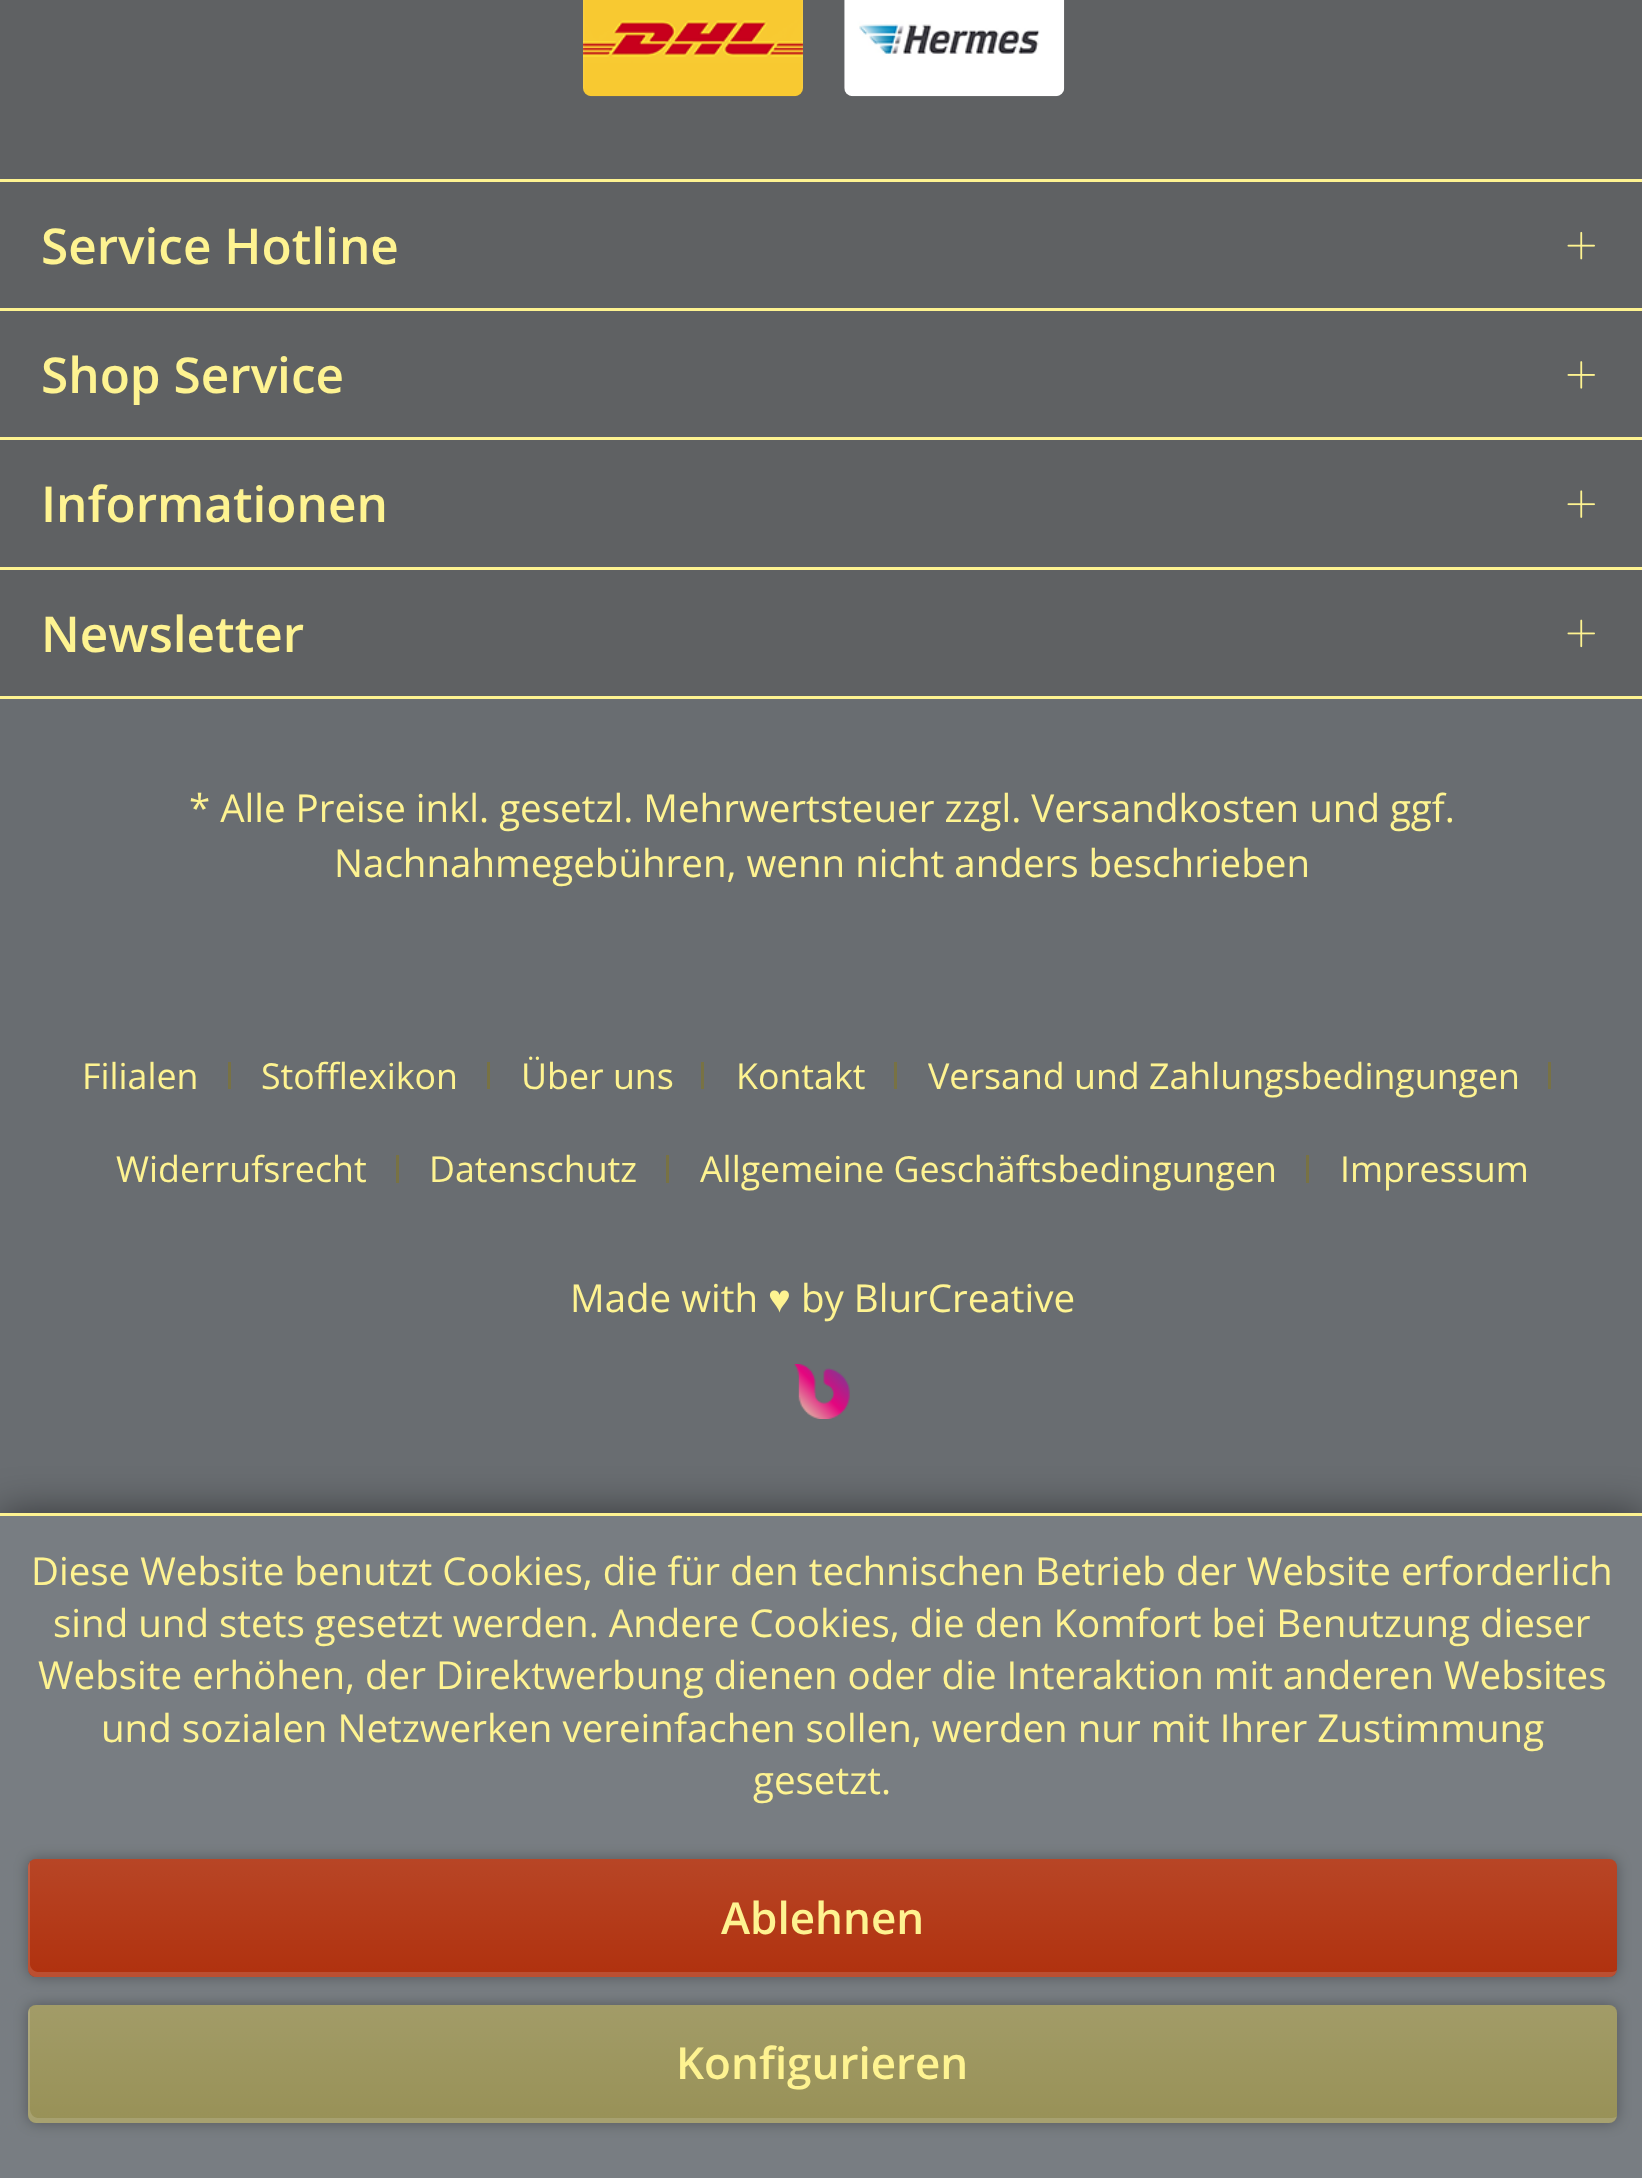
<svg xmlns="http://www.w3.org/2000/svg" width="1642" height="2178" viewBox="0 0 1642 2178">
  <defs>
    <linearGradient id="g1" gradientUnits="userSpaceOnUse" x1="822" y1="1859" x2="822" y2="1977"><stop offset="0" stop-color="#fff" stop-opacity="0.1"/><stop offset="1" stop-color="#fff" stop-opacity="0"/></linearGradient>
    <linearGradient id="g2" gradientUnits="userSpaceOnUse" x1="822" y1="2005" x2="822" y2="2123"><stop offset="0" stop-color="#fff" stop-opacity="0.1"/><stop offset="1" stop-color="#fff" stop-opacity="0"/></linearGradient>
  </defs>
  <rect width="100%" height="100%" fill="#696d71"/>
  <path d="M0 0h1642v179H0z" fill="#5f6163"/>
  <path d="M0 179h1642v3H0z" fill="#fef391"/>
  <image x="583" y="0" width="220" height="97" href="img/1.png"/>
  <image x="844" y="0" width="221" height="97" href="img/2.png"/>
  <path d="M0 182h1642v514H0z" fill="#5f6163"/>
  <path d="M0 308h1642v3H0z" fill="#fef391"/>
  <image x="1567" y="231" width="28" height="29" href="img/3.png"/>
  <path d="M0 437h1642v3H0z" fill="#fef391"/>
  <image x="1567" y="361" width="28" height="28" href="img/4.png"/>
  <path d="M0 567h1642v3H0z" fill="#fef391"/>
  <image x="1567" y="490" width="28" height="28" href="img/5.png"/>
  <path d="M0 696h1642v3H0z" fill="#fef391"/>
  <image x="1567" y="619" width="28" height="29" href="img/6.png"/>
  <path d="M228 1062h3v27H228z" fill="#787244"/>
  <path d="M487 1062h3v27H487z" fill="#787244"/>
  <path d="M701 1062h3v27H701z" fill="#787244"/>
  <path d="M894 1062h3v27H894z" fill="#787244"/>
  <path d="M1548 1062h3v27H1548z" fill="#787244"/>
  <path d="M396 1155h3v28H396z" fill="#787244"/>
  <path d="M666 1155h3v28H666z" fill="#787244"/>
  <path d="M1306 1155h3v28H1306z" fill="#787244"/>
  <image x="794" y="1364" width="56" height="55" href="img/7.png"/>
  <path d="M0 1513h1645v665H0z" fill="#00000080" filter="blur(20.5px)"/>
  <path d="M0 1516h1642v662H0z" fill="#787d82"/>
  <path d="M0 1513h1642v3H0z" fill="#fef391"/>
  <rect x="28" y="1859" width="1589" height="118" rx="8" fill="#0000004d" filter="blur(7px)"/>
  <rect x="28" y="1859" width="1589" height="118" rx="8" fill="#b0310e"/>
  <rect x="28" y="1859" width="1589" height="118" rx="8" fill="url(#g1)"/>
  <path d="M30 1862C29 1863 28 1865 28 1867V1969C28 1973 32 1977 36 1977H1609C1613 1977 1616 1974 1617 1970C1616 1971 1614 1972 1612 1972H38C34 1972 30 1968 30 1964Z" fill="#ffffff26"/>
  <rect x="28" y="2005" width="1589" height="118" rx="8" fill="#0000004d" filter="blur(7px)"/>
  <rect x="28" y="2005" width="1589" height="118" rx="8" fill="#989157"/>
  <rect x="28" y="2005" width="1589" height="118" rx="8" fill="url(#g2)"/>
  <path d="M30 2008C29 2009 28 2011 28 2013V2115C28 2119 32 2123 36 2123H1609C1613 2123 1616 2120 1617 2116C1616 2117 1614 2118 1612 2118H38C34 2118 30 2114 30 2109Z" fill="#ffffff26"/>
  <g font-family="Open Sans" font-size="49.5" font-weight="600" fill="#fef391">
    <text x="41" y="264">Service Hotline</text>
    <text x="41" y="393">Shop Service</text>
    <text x="41" y="522">Informationen</text>
    <text x="41" y="652">Newsletter</text>
  </g>
  <g font-family="Open Sans" font-size="38.5" fill="#fef391">
    <text x="189" y="822">* Alle Preise inkl. gesetzl. Mehrwertsteuer zzgl. Versandkosten und ggf.</text>
    <text x="334" y="877">Nachnahmegebühren, wenn nicht anders beschrieben</text>
  </g>
  <g font-family="Open Sans" font-size="35.75" fill="#fef391">
    <text x="82" y="1089">Filialen</text>
    <text x="261" y="1089">Stofflexikon</text>
    <text x="521" y="1089">Über uns</text>
    <text x="736" y="1089">Kontakt</text>
    <text x="928" y="1089">Versand und Zahlungsbedingungen</text>
    <text x="116" y="1182">Widerrufsrecht</text>
    <text x="429" y="1182">Datenschutz</text>
    <text x="700" y="1182">Allgemeine Geschäftsbedingungen</text>
    <text x="1340" y="1182">Impressum</text>
  </g>
  <text x="570" y="1312" font-family="Open Sans" font-size="38.5" fill="#fef391">Made with</text>
  <text x="768" y="1312" font-family="Liberation Serif" font-size="38.5" fill="#fef391">♥</text>
  <g font-family="Open Sans" font-size="38.5" fill="#fef391">
    <text x="801" y="1312">by BlurCreative</text>
    <text x="31" y="1585">Diese Website benutzt Cookies, die für den technischen Betrieb der Website erforderlich</text>
    <text x="53" y="1637">sind und stets gesetzt werden. Andere Cookies, die den Komfort bei Benutzung dieser</text>
    <text x="38" y="1689">Website erhöhen, der Direktwerbung dienen oder die Interaktion mit anderen Websites</text>
    <text x="101" y="1742">und sozialen Netzwerken vereinfachen sollen, werden nur mit Ihrer Zustimmung</text>
    <text x="753" y="1794">gesetzt.</text>
  </g>
  <g font-family="Open Sans" font-size="44" font-weight="600" fill="#fef391">
    <text x="721" y="1934">Ablehnen</text>
    <text x="676" y="2079">Konfigurieren</text>
  </g>
</svg>
